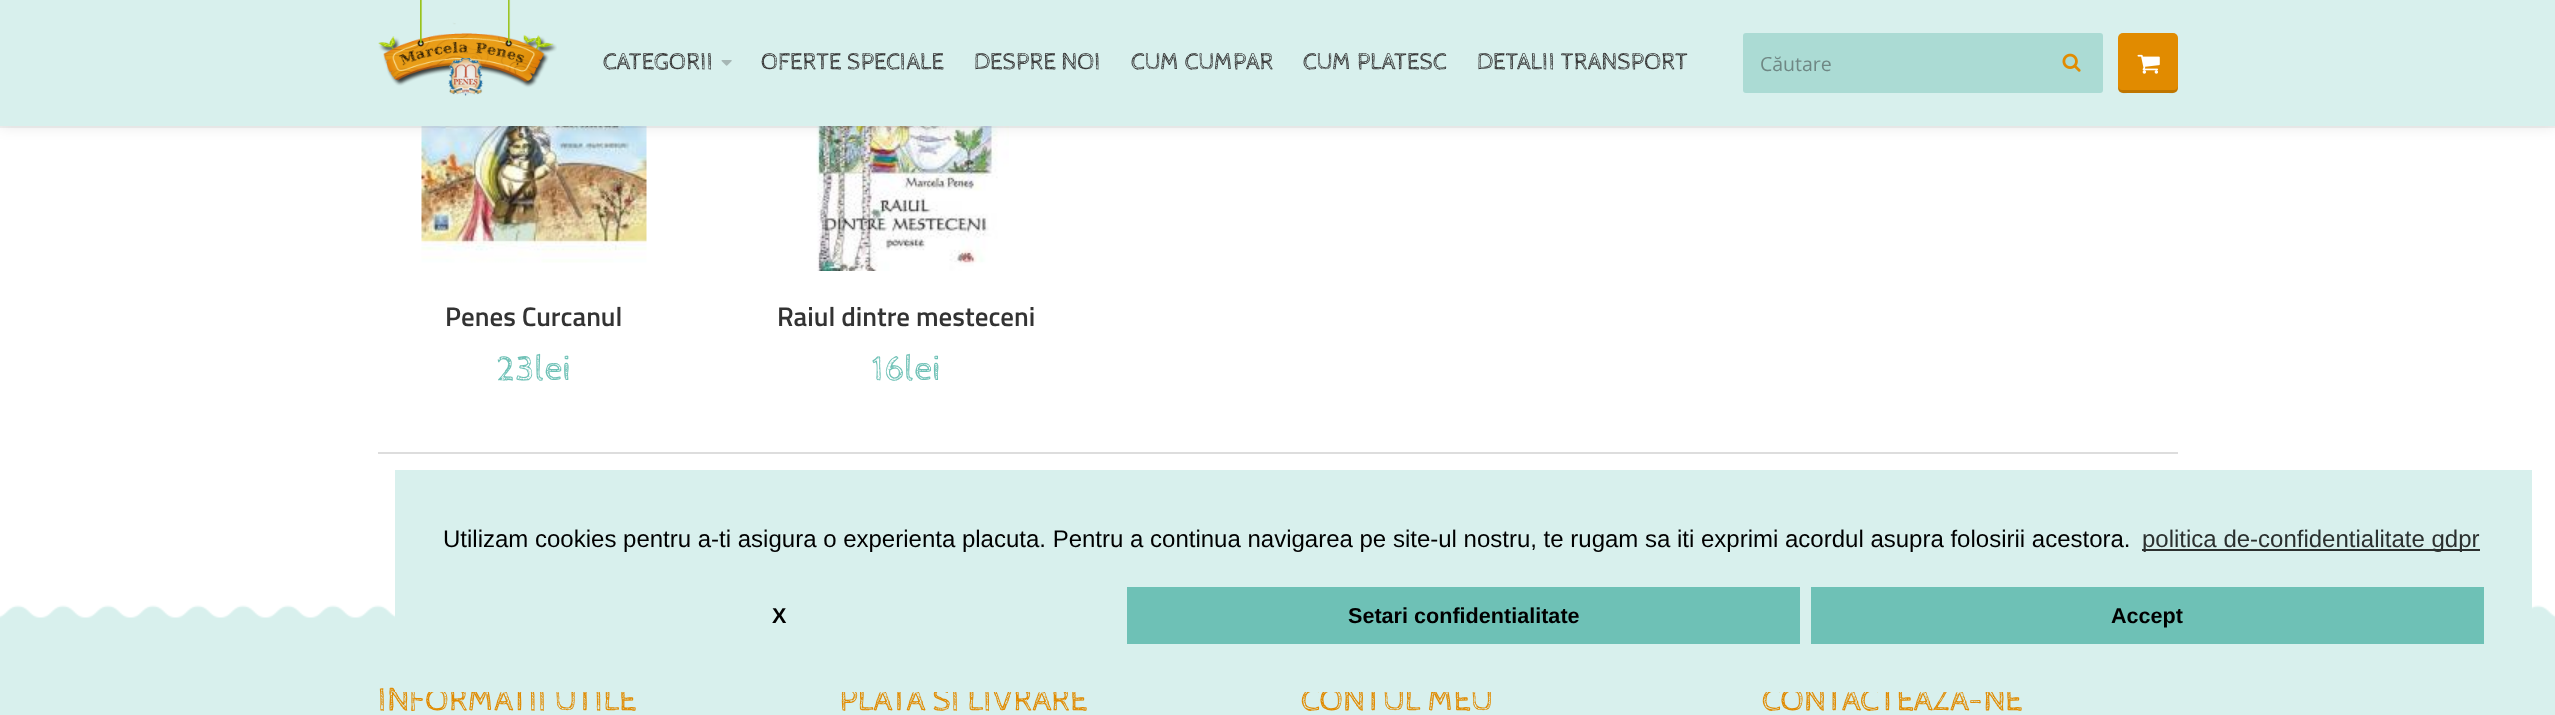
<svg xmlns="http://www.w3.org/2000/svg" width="2555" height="715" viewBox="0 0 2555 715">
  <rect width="100%" height="100%" fill="#d8f0ed"/>
  <path d="M0 126h2555v477H0z" fill="#fff"/>
  <image x="421" y="126" width="226" height="137" href="img/5.png"/>
  <image x="816" y="126" width="193" height="145" href="img/6.png"/>
  <path d="M0 0h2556v126H0z" fill="#0000001a" filter="blur(7.5px)"/>
  <path d="M0 126h2555v2H0z" fill="#0000000d"/>
  <path d="M0 0h2555v126H0z" fill="#d8f0ed"/>
  <image x="378" y="0" width="179" height="96" href="img/1.png"/>
  <image x="721" y="60" width="11" height="6" href="img/2.png"/>
  <rect x="1744" y="34" width="358" height="58" rx="2" fill="#abdbd4" stroke="#abdbd4" stroke-width="2"/>
  <image x="2062" y="53" width="19" height="19" href="img/3.png"/>
  <rect x="2118" y="33" width="60" height="60" rx="5" fill="#e18b00"/>
  <path d="M2118 86C2118 95 2124 93 2131 93H2165C2172 93 2178 95 2178 86C2178 88 2176 90 2174 90H2122C2120 90 2118 88 2118 86Z" fill="#00000026"/>
  <image x="2137" y="54" width="23" height="20" href="img/4.png"/>
  <path d="M378 452h1800v2H378z" fill="#ddd"/>
  <image x="0" y="603" width="2555" height="15" href="img/7.png"/>
  <g font-family="Cabin Sketch" font-size="24" fill="#333">
    <text x="603" y="69">CATEGORII</text>
    <text x="761" y="69">OFERTE SPECIALE</text>
    <text x="974" y="69">DESPRE NOI</text>
    <text x="1131" y="69">CUM CUMPAR</text>
    <text x="1303" y="69">CUM PLATESC</text>
    <text x="1477" y="69">DETALII TRANSPORT</text>
  </g>
  <text x="1760" y="71" font-family="Open Sans" font-size="19.5" fill="#6f8784">Căutare</text>
  <text x="445" y="326" font-family="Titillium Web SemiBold" font-size="27" font-weight="600" fill="#333">Penes Curcanul</text>
  <text x="497" y="380" font-family="Cabin Sketch" font-size="36" fill="#6ec1b6">23lei</text>
  <text x="777" y="326" font-family="Titillium Web SemiBold" font-size="27" font-weight="600" fill="#333">Raiul dintre mesteceni</text>
  <text x="871" y="380" font-family="Cabin Sketch" font-size="36" fill="#6ec1b6">16lei</text>
  <g font-family="Cabin Sketch" font-size="33" fill="#e18b00">
    <text x="378" y="710">INFORMATII UTILE</text>
    <text x="839" y="710">PLATA SI LIVRARE</text>
    <text x="1301" y="710">CONTUL MEU</text>
    <text x="1762" y="710">CONTACTEAZA-NE</text>
  </g>
  <path d="M395 470h2137v222H395z" fill="#d8f0ed"/>
  <text x="443" y="547" font-family="Liberation Sans" font-size="24" fill="#000">Utilizam cookies pentru a-ti asigura o experienta placuta. Pentru a continua navigarea pe site-ul nostru, te rugam sa iti exprimi acordul asupra folosirii acestora.</text>
  <path d="M2142 549h338v2H2142z" fill="#2b302f"/>
  <text x="2142" y="547" font-family="Liberation Sans" font-size="24" fill="#2b302f">politica de-confidentialitate gdpr</text>
  <text x="772" y="623" font-family="Liberation Sans" font-size="21.6" font-weight="bold" fill="#000">X</text>
  <path d="M1127 587h673v57H1127z" fill="#6ec1b6"/>
  <text x="1348" y="623" font-family="Liberation Sans" font-size="21.6" font-weight="bold" fill="#000">Setari confidentialitate</text>
  <path d="M1811 587h673v57H1811z" fill="#6ec1b6"/>
  <text x="2111" y="623" font-family="Liberation Sans" font-size="21.6" font-weight="bold" fill="#000">Accept</text>
</svg>
